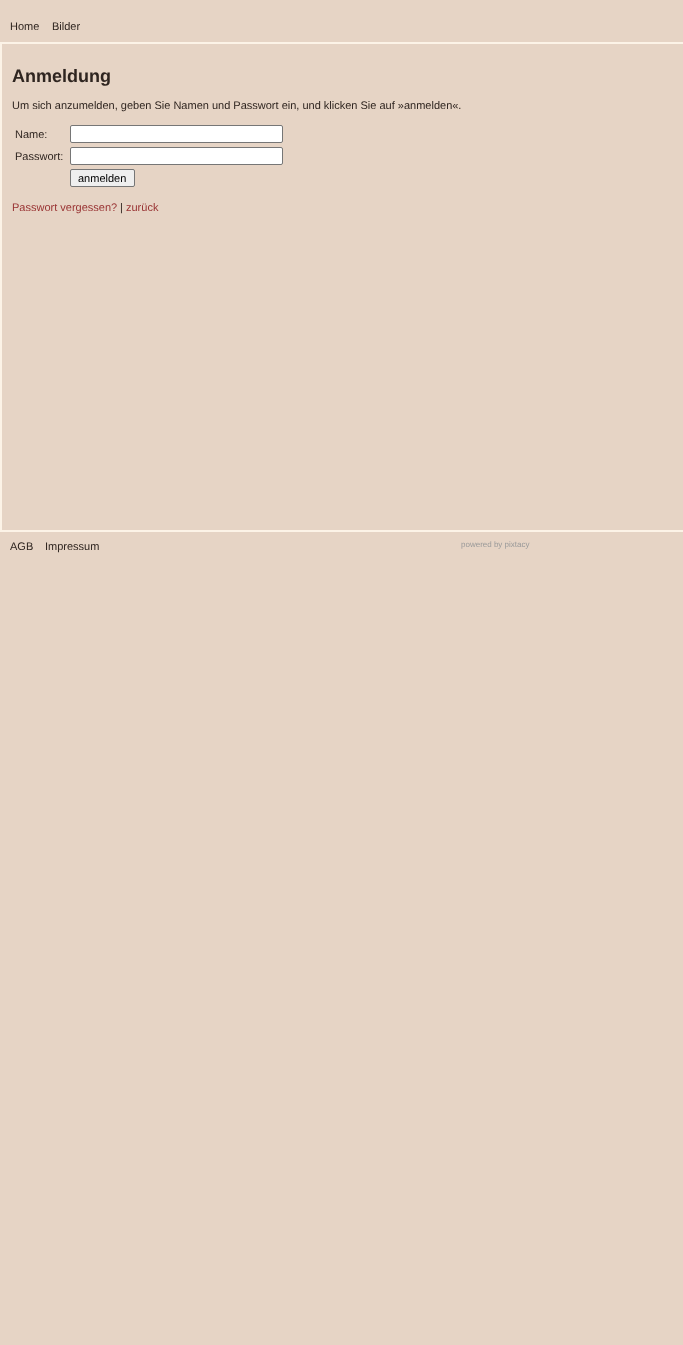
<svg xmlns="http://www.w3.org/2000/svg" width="683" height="1345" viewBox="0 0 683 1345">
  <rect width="100%" height="100%" fill="#e6d4c5"/>
  <path d="M1 43h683v488H1z" fill="none" stroke="#fcf3e7" stroke-width="2"/>
  <rect x="70.5" y="125.5" width="212" height="17" rx="1.5" fill="#fff" stroke="#767676"/>
  <rect x="70.5" y="147.5" width="212" height="17" rx="1.5" fill="#fff" stroke="#767676"/>
  <rect x="70.5" y="169.5" width="64" height="17" rx="1.5" fill="#efefef" stroke="#767676"/>
  <g font-family="Liberation Sans" font-size="11" fill="#2f2520">
    <text x="10" y="30">Home</text>
    <text x="52" y="30">Bilder</text>
  </g>
  <text x="12" y="82" font-family="Liberation Sans" font-size="18" font-weight="bold" fill="#2f2520">Anmeldung</text>
  <g font-family="Liberation Sans" font-size="11" fill="#2f2520">
    <text x="12" y="109">Um sich anzumelden, geben Sie Namen und Passwort ein, und klicken Sie auf »anmelden«.</text>
    <text x="15" y="138">Name:</text>
    <text x="15" y="160">Passwort:</text>
  </g>
  <text x="78" y="182" font-family="Liberation Sans" font-size="11" fill="#000">anmelden</text>
  <text x="12" y="211" font-family="Liberation Sans" font-size="11" fill="#933">Passwort vergessen?</text>
  <text x="120" y="211" font-family="Liberation Sans" font-size="11" fill="#2f2520">|</text>
  <text x="126" y="211" font-family="Liberation Sans" font-size="11" fill="#933">zurück</text>
  <g font-family="Liberation Sans" font-size="11" fill="#2f2520">
    <text x="10" y="550">AGB</text>
    <text x="45" y="550">Impressum</text>
  </g>
  <text x="461" y="547" font-family="Liberation Sans" font-size="8" fill="#999">powered by pixtacy</text>
</svg>
